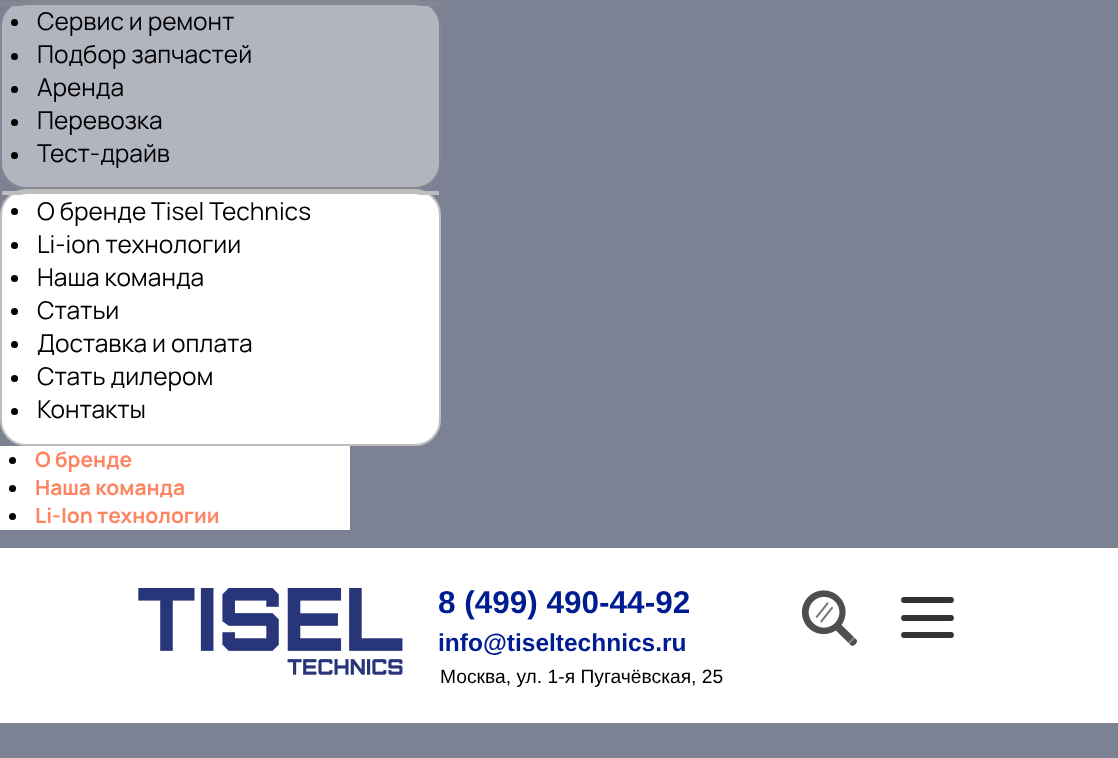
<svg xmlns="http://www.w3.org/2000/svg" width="1118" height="758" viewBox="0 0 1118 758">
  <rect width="100%" height="100%" fill="#fff"/>
  <rect x="-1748" y="-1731" width="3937" height="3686" rx="1775" fill="#000b304d" filter="blur(35px)"/>
  <rect x="1" y="1" width="439" height="187" rx="25" fill="#fff" stroke="#bebebe" stroke-width="2"/>
  <path d="M2 2h437v4H2z" fill="#bebebe"/>
  <rect x="2" y="5" width="437" height="165" rx="26" fill="#fff"/>
  <rect x="-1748" y="-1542" width="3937" height="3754" rx="1775" fill="#000b304d" filter="blur(35px)"/>
  <circle cx="14.5" cy="22.5" r="3.5" fill="#000"/>
  <circle cx="14.5" cy="56.5" r="3.5" fill="#000"/>
  <circle cx="14.5" cy="89.5" r="3.5" fill="#000"/>
  <circle cx="14.5" cy="122.5" r="3.5" fill="#000"/>
  <circle cx="14.5" cy="155.5" r="3.5" fill="#000"/>
  <rect x="1" y="190" width="439" height="255" rx="25" fill="#fff" stroke="#bebebe" stroke-width="2"/>
  <path d="M2 191h437v4H2z" fill="#bebebe"/>
  <rect x="2" y="194" width="437" height="233" rx="26" fill="#fff"/>
  <circle cx="14.5" cy="211.5" r="3.5" fill="#000"/>
  <circle cx="14.5" cy="245.5" r="3.5" fill="#000"/>
  <circle cx="14.5" cy="278.5" r="3.5" fill="#000"/>
  <circle cx="14.5" cy="311.5" r="3.5" fill="#000"/>
  <circle cx="14.5" cy="344.5" r="3.5" fill="#000"/>
  <circle cx="14.5" cy="378.5" r="3.5" fill="#000"/>
  <circle cx="14.5" cy="411.5" r="3.5" fill="#000"/>
  <path d="M0 446h350v84H0z" fill="#fff"/>
  <circle cx="12.5" cy="460.5" r="3.5" fill="#000"/>
  <circle cx="12.5" cy="488.5" r="3.5" fill="#000"/>
  <circle cx="12.5" cy="516.5" r="3.5" fill="#000"/>
  <path d="M0 548h1118v175H0z" fill="#fff"/>
  <image x="138" y="588" width="265" height="87" href="img/1.png"/>
  <image x="802" y="590" width="55" height="56" href="img/2.png"/>
  <path d="M904 600H951M904 618H951M904 635H951" fill="none" stroke="#333" stroke-width="5.8" stroke-linecap="round" stroke-linejoin="round"/>
  <g font-family="Manrope" font-size="24.5" fill="#000">
    <text x="37" y="30">Сервис и ремонт</text>
    <text x="37" y="63">Подбор запчастей</text>
    <text x="37" y="96">Аренда</text>
    <text x="37" y="129">Перевозка</text>
    <text x="37" y="162">Тест-драйв</text>
    <text x="37" y="220">О бренде Tisel Technics</text>
    <text x="37" y="253">Li-ion технологии</text>
    <text x="37" y="286">Наша команда</text>
    <text x="37" y="319">Статьи</text>
    <text x="37" y="352">Доставка и оплата</text>
    <text x="37" y="385">Стать дилером</text>
    <text x="37" y="418">Контакты</text>
  </g>
  <g font-family="Manrope" font-size="21" font-weight="bold" fill="#ff8562">
    <text x="35" y="467">О бренде</text>
    <text x="35" y="495">Наша команда</text>
    <text x="35" y="523">Li-Ion технологии</text>
  </g>
  <text x="438" y="613" font-family="Liberation Sans" font-size="31.5" font-weight="bold" fill="#001c91">8 (499) 490-44-92</text>
  <text x="438" y="651" font-family="Liberation Sans" font-size="24.5" font-weight="bold" fill="#001c91">info@tiseltechnics.ru</text>
  <text x="440" y="683" font-family="Liberation Sans" font-size="19.25" fill="#000">Москва, ул. 1-я Пугачёвская, 25</text>
</svg>
